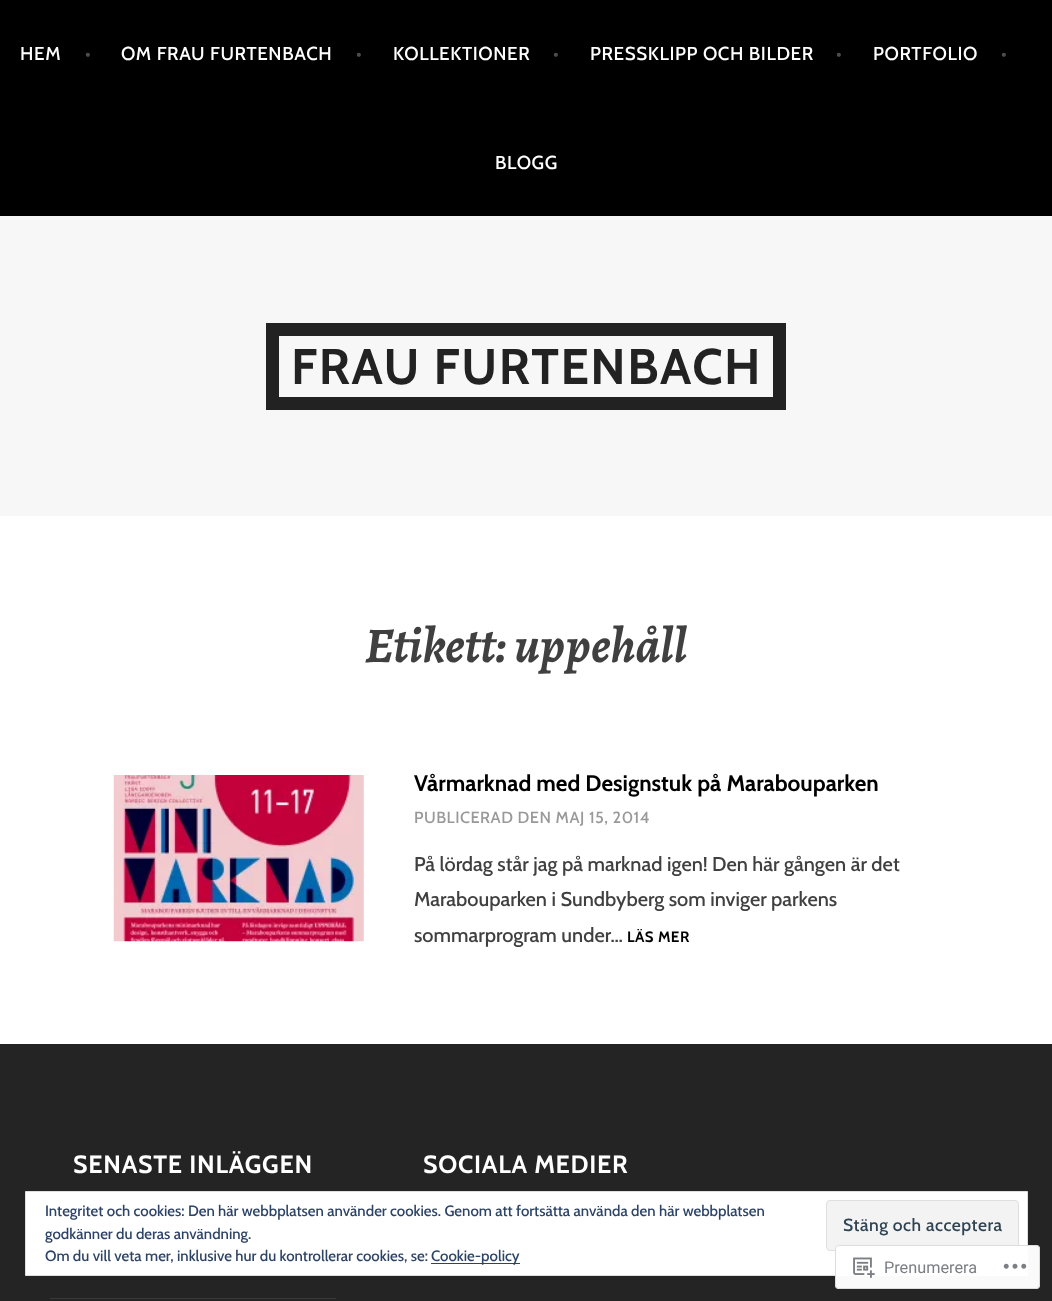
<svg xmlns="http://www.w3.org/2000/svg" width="1052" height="1301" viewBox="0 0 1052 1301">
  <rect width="100%" height="100%" fill="#fff"/>
  <path d="M0 0h1052v216H0z" fill="#000"/>
  <path d="M0 216h1052v300H0z" fill="#f7f7f7"/>
  <path d="M272.5 329.5h507v74H272.5z" fill="none" stroke="#222" stroke-width="13"/>
  <image x="113" y="775" width="251" height="167" href="img/1.png"/>
  <path d="M0 1044h1052v257H0z" fill="#242424"/>
  <path d="M50 1298h286v1H50z" fill="#3a3a3a"/>
  <path d="M25.5 1191.5h1002v84H25.5z" fill="#fff" stroke="#dedede"/>
  <rect x="826.5" y="1200.5" width="192" height="50" rx="3.5" fill="#f3f3f3" stroke="#dedede"/>
  <path d="M431 1263h89v1H431z" fill="#2e4467"/>
  <rect x="835" y="1245" width="205" height="44" rx="4" fill="#fffffffa"/>
  <rect x="835.5" y="1245.5" width="204" height="43" rx="3.5" fill="none" stroke="#dcdcdefa"/>
  <image x="853" y="1257" width="22" height="21" href="img/2.png"/>
  <image x="1003" y="1263" width="24" height="6" href="img/3.png"/>
  <text x="20" y="60" font-family="Cabin" font-size="18.75" font-weight="500" letter-spacing="0.6" fill="#fff">HEM</text>
  <text x="85" y="60" font-family="Cabin" font-size="18.75" font-weight="500" letter-spacing="0.6" fill="#4d4d4d">•</text>
  <text x="121" y="60" font-family="Cabin" font-size="18.75" font-weight="500" letter-spacing="0.6" fill="#fff">OM FRAU FURTENBACH</text>
  <text x="356" y="60" font-family="Cabin" font-size="18.75" font-weight="500" letter-spacing="0.6" fill="#4d4d4d">•</text>
  <text x="393" y="60" font-family="Cabin" font-size="18.75" font-weight="500" letter-spacing="0.6" fill="#fff">KOLLEKTIONER</text>
  <text x="553" y="60" font-family="Cabin" font-size="18.75" font-weight="500" letter-spacing="0.6" fill="#4d4d4d">•</text>
  <text x="590" y="60" font-family="Cabin" font-size="18.75" font-weight="500" letter-spacing="0.6" fill="#fff">PRESSKLIPP OCH BILDER</text>
  <text x="836" y="60" font-family="Cabin" font-size="18.75" font-weight="500" letter-spacing="0.6" fill="#4d4d4d">•</text>
  <text x="873" y="60" font-family="Cabin" font-size="18.75" font-weight="500" letter-spacing="0.6" fill="#fff">PORTFOLIO</text>
  <text x="1001" y="60" font-family="Cabin" font-size="18.75" font-weight="500" letter-spacing="0.6" fill="#4d4d4d">•</text>
  <text x="495" y="169" font-family="Cabin" font-size="18.75" font-weight="500" letter-spacing="0.6" fill="#fff">BLOGG</text>
  <text x="291" y="384" font-family="Cabin" font-size="50" font-weight="bold" letter-spacing="1.5" fill="#222">FRAU FURTENBACH</text>
  <text x="365" y="662" font-family="Alegreya" font-size="50" font-weight="bold" font-style="italic" fill="#404040">Etikett: uppehåll</text>
  <text x="414" y="791" font-family="Cabin" font-size="22.5" font-weight="bold" fill="#000">Vårmarknad med Designstuk på Marabouparken</text>
  <text x="414" y="823" font-family="Cabin" font-size="16.25" font-weight="500" letter-spacing="0.5" fill="#999">PUBLICERAD DEN MAJ 15, 2014</text>
  <g font-family="Cabin" font-size="20" font-weight="500" fill="#404040">
    <text x="414" y="871">På lördag står jag på marknad igen! Den här gången är det</text>
    <text x="414" y="906">Marabouparken i Sundbyberg som inviger parkens</text>
    <text x="414" y="942">sommarprogram under…</text>
  </g>
  <text x="627" y="942" font-family="Cabin" font-size="15" font-weight="bold" letter-spacing="0.5" fill="#000">LÄS MER</text>
  <g font-family="Cabin" font-size="25" font-weight="bold" letter-spacing="0.75" fill="#fff">
    <text x="73" y="1173">SENASTE INLÄGGEN</text>
    <text x="423" y="1173">SOCIALA MEDIER</text>
  </g>
  <g font-family="Cabin" font-size="15" font-weight="500" fill="#2e4467">
    <text x="45" y="1216">Integritet och cookies: Den här webbplatsen använder cookies. Genom att fortsätta använda den här webbplatsen</text>
    <text x="45" y="1239">godkänner du deras användning.</text>
  </g>
  <text x="843" y="1231" font-family="Cabin" font-size="17.5" font-weight="500" letter-spacing="0.5" fill="#2e4453">Stäng och acceptera</text>
  <g font-family="Cabin" font-size="15" font-weight="500" fill="#2e4467">
    <text x="45" y="1261">Om du vill veta mer, inklusive hur du kontrollerar cookies, se:</text>
    <text x="431" y="1261">Cookie-policy</text>
  </g>
  <text x="884" y="1273" font-family="Roboto" font-size="16.25" fill="#7b7f85">Prenumerera</text>
</svg>
